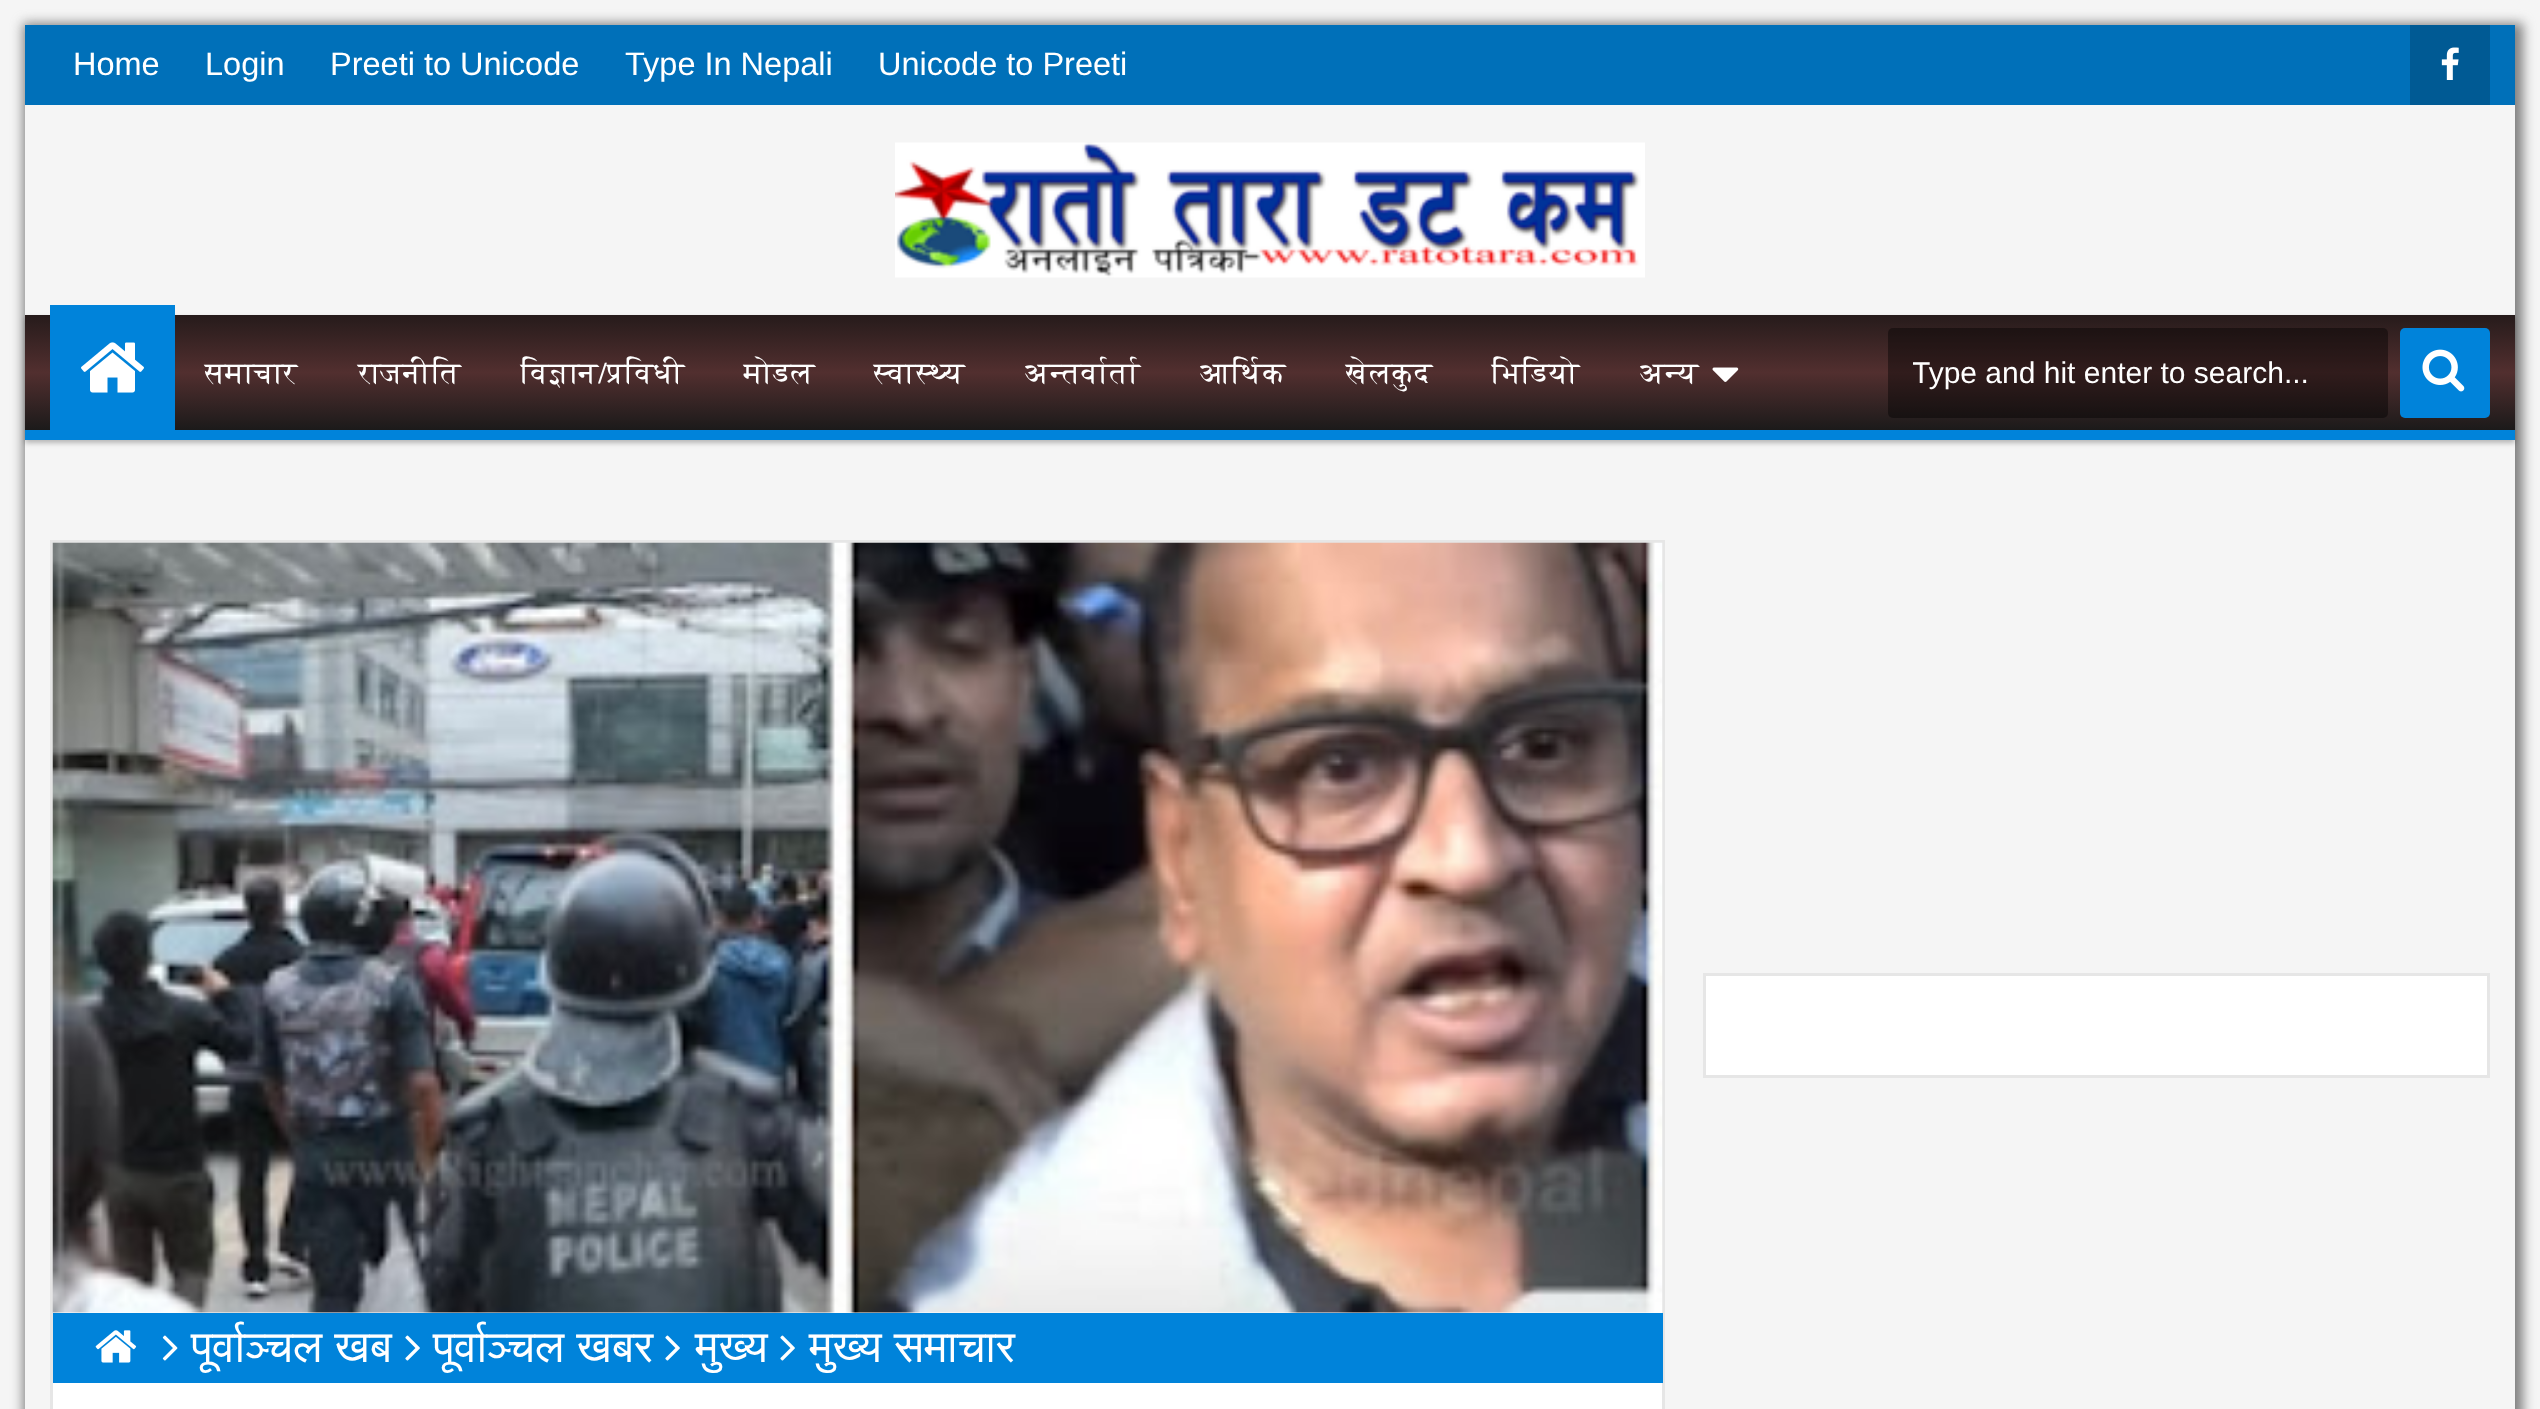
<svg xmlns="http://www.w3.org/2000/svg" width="2540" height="1409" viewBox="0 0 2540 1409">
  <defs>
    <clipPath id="clip1"><path d="M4 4H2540V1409H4ZM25 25H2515V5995H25Z" clip-rule="evenodd"/></clipPath>
    <linearGradient id="g1" gradientUnits="userSpaceOnUse" x1="1270" y1="315" x2="1270" y2="430"><stop offset="0" stop-color="#261b1b"/><stop offset="0.5" stop-color="#522f2f"/><stop offset="1" stop-color="#1b1a1a"/></linearGradient>
    <clipPath id="clip2"><path d="M1913 355h450v35H1913z"/></clipPath>
  </defs>
  <rect width="100%" height="100%" fill="#f5f5f5"/>
  <g clip-path="url(#clip1)">
    <path d="M23 23h2500v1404H23z" fill="#808080" filter="blur(6px)"/>
  </g>
  <path d="M25 25h2490v80H25z" fill="#0070b9"/>
  <path d="M2410 25h80v80H2410z" fill="#005a94"/>
  <image x="2441" y="47" width="18" height="33" href="img/1.png"/>
  <image x="895" y="142" width="750" height="136" href="img/2.png"/>
  <path d="M25 318h2490v125H25z" fill="#00000042" filter="blur(2.5px)"/>
  <path d="M25 315h2490v115H25z" fill="url(#g1)"/>
  <path d="M25 430h2490v10H25z" fill="#0083da"/>
  <path d="M50 305h125v125H50z" fill="#0083da"/>
  <image x="81" y="342" width="63" height="51" href="img/3.png"/>
  <image x="1712" y="367" width="27" height="15" href="img/4.png"/>
  <rect x="1888" y="328" width="500" height="90" rx="5" fill="#00000066"/>
  <rect x="2400" y="328" width="90" height="90" rx="5" fill="#0083da"/>
  <image x="2422" y="349" width="43" height="43" href="img/5.png"/>
  <path d="M1704.5 974.5h784v102H1704.5z" fill="#fff" stroke="#e6e6e6" stroke-width="3"/>
  <path d="M53 1312h1609v97H53z" fill="#fff"/>
  <path d="M51.5 541.5h1612v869H51.5z" fill="none" stroke="#e6e6e6" stroke-width="3"/>
  <image x="52" y="542" width="1611" height="771" href="img/6.png"/>
  <path d="M53 1313h1610v70H53z" fill="#0083da"/>
  <image x="95" y="1330" width="42" height="33" href="img/7.png"/>
  <image x="162" y="1335" width="16" height="26" href="img/8.png"/>
  <image x="405" y="1335" width="15" height="26" href="img/9.png"/>
  <image x="665" y="1335" width="15" height="26" href="img/9.png"/>
  <image x="780" y="1335" width="15" height="26" href="img/9.png"/>
  <g font-family="Liberation Sans" font-size="32.5" fill="#fff">
    <text x="73" y="75">Home</text>
    <text x="205" y="75">Login</text>
    <text x="330" y="75">Preeti to Unicode</text>
    <text x="625" y="75">Type In Nepali</text>
    <text x="878" y="75">Unicode to Preeti</text>
  </g>
  <g font-family="FreeSerif" font-size="30" fill="#fff">
    <text x="205" y="383">समाचार</text>
    <text x="358" y="383">राजनीति</text>
    <text x="521" y="383">विज्ञान/प्रविधी</text>
    <text x="744" y="383">मोडल</text>
    <text x="874" y="383">स्वास्थ्य</text>
    <text x="1025" y="383">अन्तर्वार्ता</text>
    <text x="1200" y="383">आर्थिक</text>
    <text x="1346" y="383">खेलकुद</text>
    <text x="1492" y="383">भिडियो</text>
    <text x="1640" y="383">अन्य</text>
  </g>
  <g clip-path="url(#clip2)">
    <text x="1912" y="383" font-family="Liberation Sans" font-size="30" fill="#fff">Type and hit enter to search...</text>
  </g>
  <g font-family="FreeSans" font-size="45" fill="#fff">
    <text x="191" y="1362" word-spacing="1">पूर्वाञ्चल खब</text>
    <text x="433" y="1362" word-spacing="1">पूर्वाञ्चल खबर</text>
    <text x="695" y="1362">मुख्य</text>
    <text x="809" y="1362">मुख्य</text>
    <text x="894" y="1362">समाचार</text>
  </g>
</svg>
